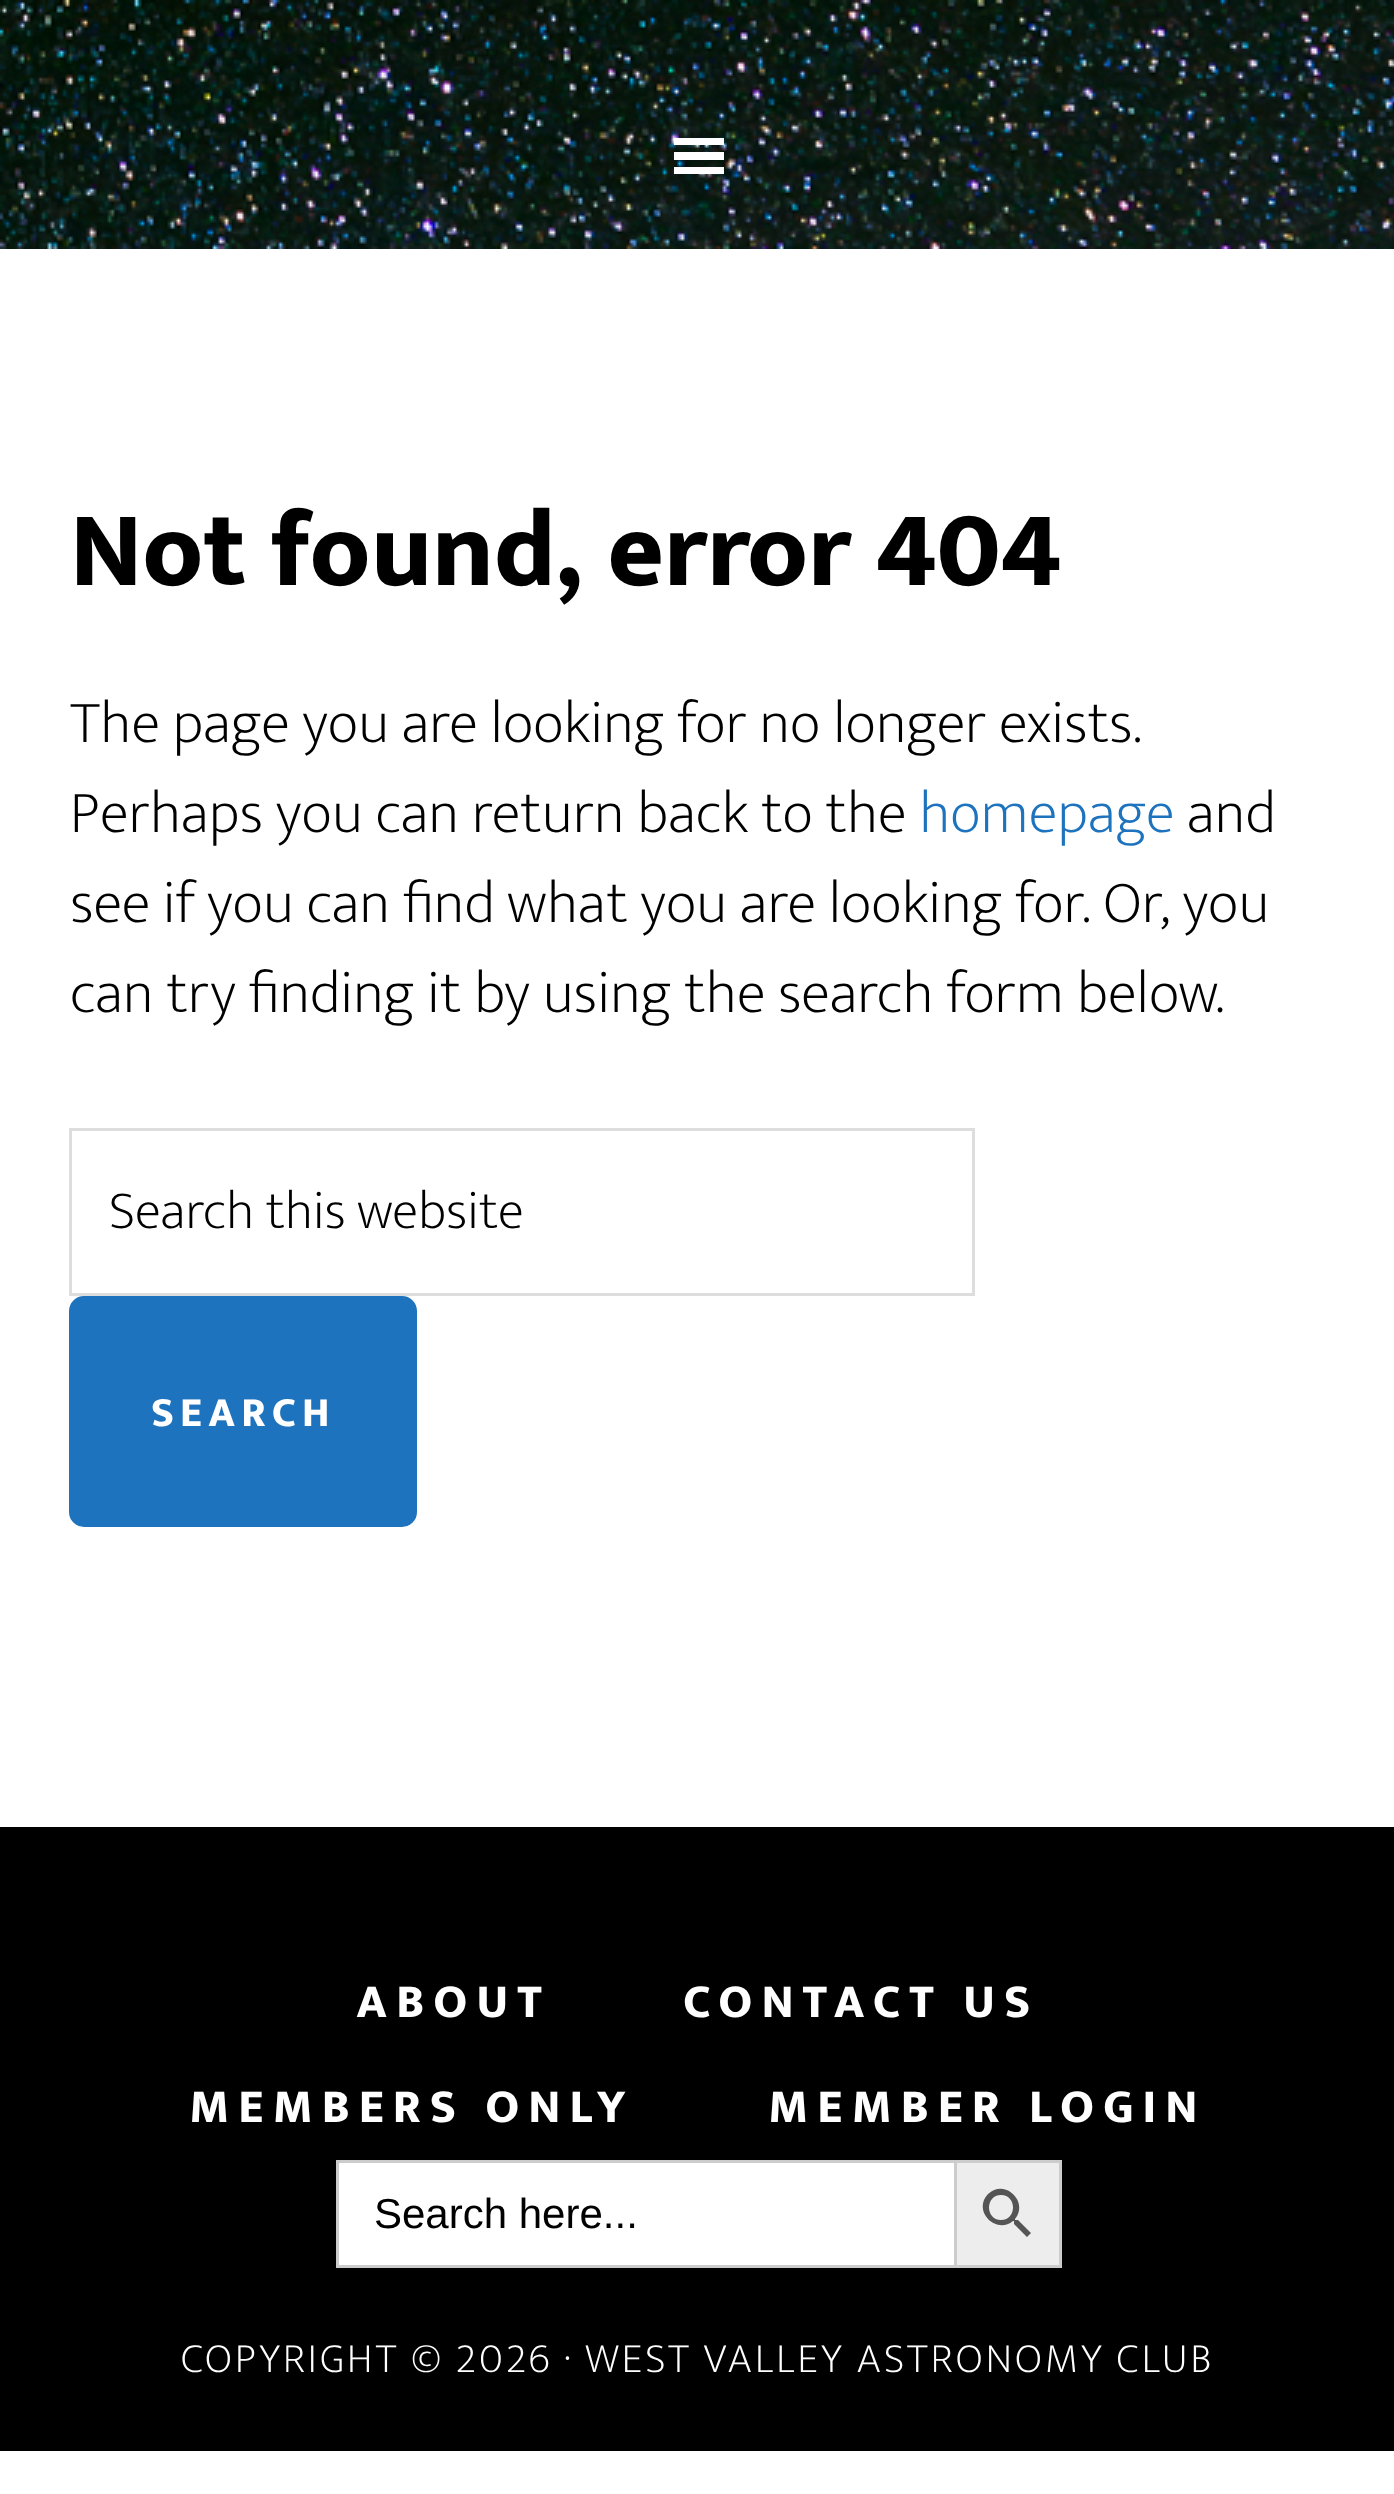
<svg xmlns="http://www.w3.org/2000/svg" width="1394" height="2494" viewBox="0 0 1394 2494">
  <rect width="100%" height="100%" fill="#fff"/>
  <image x="0" y="0" width="1394" height="249" href="img/1.png"/>
  <path d="M674 174H724V167H674ZM674 138V145H724V138ZM674 160H724V152H674Z" fill="#fff"/>
  <path d="M70.5 1129.5h903v165H70.5z" fill="none" stroke="#ddd" stroke-width="3"/>
  <rect x="72" y="1299" width="342" height="225" rx="12" fill="#1e73be" stroke="#1e73be" stroke-width="6"/>
  <path d="M0 1827h1394v624H0z" fill="#000"/>
  <path d="M339 2163h615v102H339z" fill="#fff"/>
  <path d="M336 2160h618v3H336z" fill="#ccc"/>
  <path d="M336 2265h618v3H336z" fill="#ccc"/>
  <path d="M336 2160h3v108H336z" fill="#ccc"/>
  <path d="M955.5 2161.5h105v105H955.5z" fill="#ededed" stroke="#ccc" stroke-width="3"/>
  <path d="M1018 2220H1015V2219C1029 2202 1005 2178 988 2194C972 2211 996 2235 1013 2221H1014V2224L1027 2237L1031 2233ZM1001 2220C985 2220 985 2195 1001 2195C1017 2195 1017 2220 1001 2220Z" fill="#555"/>
  <text x="70" y="585" font-family="Ek Mukta" font-size="108" font-weight="800" fill="#000">Not found, error 404</text>
  <g font-family="Ek Mukta" font-size="60" font-weight="200" fill="#000">
    <text x="70" y="742">The page you are looking for no longer exists.</text>
    <text x="70" y="832">Perhaps you can return back to the</text>
  </g>
  <text x="919" y="832" font-family="Ek Mukta" font-size="60" font-weight="200" fill="#1e73be">homepage</text>
  <g font-family="Ek Mukta" font-size="60" font-weight="200" fill="#000">
    <text x="1187" y="832">and</text>
    <text x="70" y="922">see if you can find what you are looking for. Or, you</text>
    <text x="70" y="1012">can try finding it by using the search form below.</text>
  </g>
  <text x="109" y="1228" font-family="Ek Mukta" font-size="54" font-weight="200" fill="#000">Search this website</text>
  <text x="151" y="1426" font-family="Ek Mukta" font-size="42" font-weight="800" letter-spacing="6" fill="#fff">SEARCH</text>
  <g font-family="Ek Mukta" font-size="48" font-weight="800" letter-spacing="9" fill="#fff">
    <text x="356" y="2017">ABOUT</text>
    <text x="683" y="2017">CONTACT US</text>
    <text x="189" y="2122">MEMBERS ONLY</text>
    <text x="768" y="2122">MEMBER LOGIN</text>
  </g>
  <text x="374" y="2228" font-family="Liberation Sans" font-size="42" fill="#000">Search here...</text>
  <text x="181" y="2372" font-family="Ek Mukta" font-size="42" font-weight="200" letter-spacing="3" fill="#fff">COPYRIGHT © 2026 · WEST VALLEY ASTRONOMY CLUB</text>
</svg>
